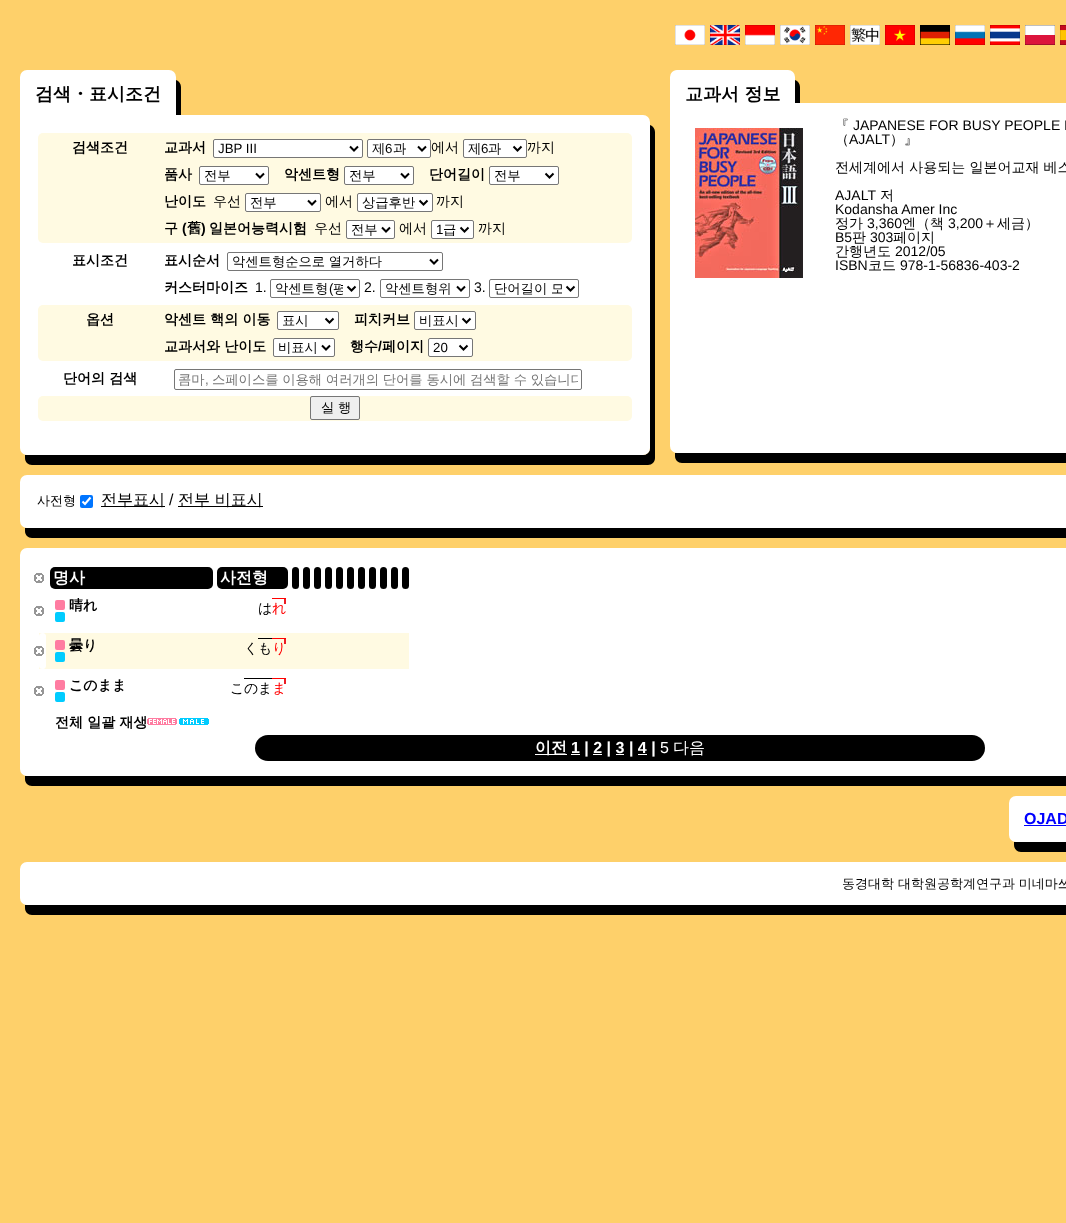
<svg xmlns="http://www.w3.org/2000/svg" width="1066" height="1223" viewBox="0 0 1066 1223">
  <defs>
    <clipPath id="clip1"><path d="M275 280h68v17H275z"/></clipPath>
    <clipPath id="clip2"><path d="M494 280h68v17H494z"/></clipPath>
    <clipPath id="clip3"><path d="M178 371h400v17H178z"/></clipPath>
  </defs>
  <rect width="100%" height="100%" fill="#fed06a"/>
  <image x="675" y="25" width="30" height="20" href="img/1.png"/>
  <image x="710" y="25" width="30" height="20" href="img/2.png"/>
  <image x="745" y="25" width="30" height="20" href="img/3.png"/>
  <image x="780" y="25" width="30" height="20" href="img/4.png"/>
  <image x="815" y="25" width="30" height="20" href="img/5.png"/>
  <image x="850" y="25" width="30" height="20" href="img/6.png"/>
  <image x="885" y="25" width="30" height="20" href="img/7.png"/>
  <image x="920" y="25" width="30" height="20" href="img/8.png"/>
  <image x="955" y="25" width="30" height="20" href="img/9.png"/>
  <image x="990" y="25" width="30" height="20" href="img/10.png"/>
  <image x="1025" y="25" width="30" height="20" href="img/11.png"/>
  <image x="1060" y="25" width="6" height="20" href="img/12.png"/>
  <path d="M25 130V133C25 137 28 140 32 140H174C178 140 181 137 181 133V87C181 84 179 81 176 80V124C174 135 146 130 145 130Z" fill="#000"/>
  <rect x="20" y="70" width="156" height="60" rx="7" fill="#fff"/>
  <path d="M25 455V458C25 462 28 465 32 465H648C652 465 655 462 655 458V132C655 129 653 126 650 125V448C650 452 647 455 643 455Z" fill="#000"/>
  <rect x="20" y="115" width="630" height="340" rx="7" fill="#fff"/>
  <rect x="38" y="133" width="594" height="110" rx="5" fill="#fffae2"/>
  <rect x="213.5" y="139.5" width="149" height="18" rx="1.5" fill="#fff" stroke="#767676"/>
  <path d="M350 146.5L354 150.5L358 146.5" fill="none" stroke="#000" stroke-width="2"/>
  <rect x="367.5" y="139.5" width="63" height="18" rx="1.5" fill="#fff" stroke="#767676"/>
  <path d="M418 146.5L422 150.5L426 146.5" fill="none" stroke="#000" stroke-width="2"/>
  <rect x="463.5" y="139.5" width="63" height="18" rx="1.5" fill="#fff" stroke="#767676"/>
  <path d="M513.5 146.5L517.5 150.5L521.5 146.5" fill="none" stroke="#000" stroke-width="2"/>
  <rect x="199.5" y="166.5" width="69" height="18" rx="1.5" fill="#fff" stroke="#767676"/>
  <path d="M256 173.5L260 177.5L264 173.5" fill="none" stroke="#000" stroke-width="2"/>
  <rect x="344.5" y="166.5" width="69" height="18" rx="1.5" fill="#fff" stroke="#767676"/>
  <path d="M401 173.5L405 177.5L409 173.5" fill="none" stroke="#000" stroke-width="2"/>
  <rect x="489.5" y="166.5" width="69" height="18" rx="1.5" fill="#fff" stroke="#767676"/>
  <path d="M545.5 173.5L549.5 177.5L553.5 173.5" fill="none" stroke="#000" stroke-width="2"/>
  <rect x="245.5" y="193.5" width="75" height="18" rx="1.5" fill="#fff" stroke="#767676"/>
  <path d="M308 200.5L312 204.5L316 200.5" fill="none" stroke="#000" stroke-width="2"/>
  <rect x="357.5" y="193.5" width="75" height="18" rx="1.5" fill="#fff" stroke="#767676"/>
  <path d="M419.5 200.5L423.5 204.5L427.5 200.5" fill="none" stroke="#000" stroke-width="2"/>
  <rect x="346.5" y="220.5" width="48" height="18" rx="1.5" fill="#fff" stroke="#767676"/>
  <path d="M382 227.5L386 231.5L390 227.5" fill="none" stroke="#000" stroke-width="2"/>
  <rect x="431.5" y="220.5" width="42" height="18" rx="1.5" fill="#fff" stroke="#767676"/>
  <path d="M460.5 227.5L464.5 231.5L468.5 227.5" fill="none" stroke="#000" stroke-width="2"/>
  <rect x="227.5" y="252.5" width="215" height="18" rx="1.5" fill="none" stroke="#767676"/>
  <path d="M430 259.5L434 263.5L438 259.5" fill="none" stroke="#000" stroke-width="2"/>
  <rect x="270.5" y="279.5" width="89" height="18" rx="1.5" fill="none" stroke="#767676"/>
  <path d="M347.5 286.5L351.5 290.5L355.5 286.5" fill="none" stroke="#000" stroke-width="2"/>
  <rect x="380.5" y="279.5" width="89" height="18" rx="1.5" fill="none" stroke="#767676"/>
  <path d="M457 286.5L461 290.5L465 286.5" fill="none" stroke="#000" stroke-width="2"/>
  <rect x="489.5" y="279.5" width="89" height="18" rx="1.5" fill="none" stroke="#767676"/>
  <path d="M566.5 286.5L570.5 290.5L574.5 286.5" fill="none" stroke="#000" stroke-width="2"/>
  <rect x="38" y="305" width="594" height="56" rx="5" fill="#fffae2"/>
  <rect x="277.5" y="311.5" width="61" height="18" rx="1.5" fill="#fff" stroke="#767676"/>
  <path d="M325.5 318.5L329.5 322.5L333.5 318.5" fill="none" stroke="#000" stroke-width="2"/>
  <rect x="414.5" y="311.5" width="61" height="18" rx="1.5" fill="#fff" stroke="#767676"/>
  <path d="M462.5 318.5L466.5 322.5L470.5 318.5" fill="none" stroke="#000" stroke-width="2"/>
  <rect x="273.5" y="338.5" width="61" height="18" rx="1.5" fill="#fff" stroke="#767676"/>
  <path d="M322 345.5L326 349.5L330 345.5" fill="none" stroke="#000" stroke-width="2"/>
  <rect x="428.5" y="338.5" width="44" height="18" rx="1.5" fill="#fff" stroke="#767676"/>
  <path d="M459.5 345.5L463.5 349.5L467.5 345.5" fill="none" stroke="#000" stroke-width="2"/>
  <rect x="174.5" y="369.5" width="407" height="20" rx="1.5" fill="none" stroke="#767676"/>
  <rect x="38" y="396" width="594" height="25" rx="5" fill="#fffae2"/>
  <rect x="310.5" y="396.5" width="49" height="23" rx="1.5" fill="#efefef" stroke="#767676"/>
  <path d="M675 118V121C675 125 678 128 682 128H793C797 128 800 125 800 121V87C800 84 798 81 795 80V112C793 122 773 118 770 118Z" fill="#000"/>
  <rect x="670" y="70" width="125" height="48" rx="7" fill="#fff"/>
  <path d="M675 453V456C675 460 678 463 682 463H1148C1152 463 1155 460 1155 456V120C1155 117 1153 114 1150 113V446C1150 450 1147 453 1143 453Z" fill="#000"/>
  <rect x="670" y="103" width="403" height="350" rx="7" fill="#fff"/>
  <image x="695" y="128" width="108" height="150" href="img/13.png"/>
  <path d="M25 528V531C25 535 28 538 32 538H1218C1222 538 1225 535 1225 531V492C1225 489 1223 486 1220 485V509C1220 515 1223 528 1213 528Z" fill="#000"/>
  <rect x="20" y="475" width="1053" height="53" rx="7" fill="#fff"/>
  <rect x="80" y="495" width="13" height="13" rx="2" fill="#0075ff"/>
  <path d="M82.5 501.5L85 504L90.5 497.5" fill="none" stroke="#fff" stroke-width="2.1"/>
  <path d="M101 506h64v1H101z" fill="#000"/>
  <path d="M178 506h85v1H178z" fill="#000"/>
  <path d="M25 776V779C25 783 28 786 32 786H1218C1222 786 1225 783 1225 779V565C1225 562 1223 559 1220 558V734C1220 748 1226 776 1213 776Z" fill="#000"/>
  <rect x="20" y="548" width="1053" height="228" rx="7" fill="#fff"/>
  <image x="34" y="573" width="10" height="10" href="img/14.png"/>
  <rect x="50" y="567" width="163" height="22" rx="5" fill="#000"/>
  <rect x="217" y="567" width="71" height="22" rx="5" fill="#000"/>
  <rect x="292" y="567" width="7" height="22" rx="3.5" fill="#000"/>
  <rect x="303" y="567" width="7" height="22" rx="3.5" fill="#000"/>
  <rect x="314" y="567" width="7" height="22" rx="3.5" fill="#000"/>
  <rect x="325" y="567" width="7" height="22" rx="3.5" fill="#000"/>
  <rect x="336" y="567" width="7" height="22" rx="3.5" fill="#000"/>
  <rect x="347" y="567" width="7" height="22" rx="3.5" fill="#000"/>
  <rect x="358" y="567" width="7" height="22" rx="3.5" fill="#000"/>
  <rect x="369" y="567" width="7" height="22" rx="3.5" fill="#000"/>
  <rect x="380" y="567" width="7" height="22" rx="3.5" fill="#000"/>
  <rect x="391" y="567" width="7" height="22" rx="3.5" fill="#000"/>
  <rect x="402" y="567" width="7" height="22" rx="3.5" fill="#000"/>
  <image x="34" y="606" width="10" height="10" href="img/14.png"/>
  <rect x="56" y="601" width="8" height="8" rx="1" fill="#ff7ca1" stroke="#ff7ca1" stroke-width="2"/>
  <rect x="56" y="613" width="8" height="8" rx="1" fill="#0cf" stroke="#0cf" stroke-width="2"/>
  <path d="M284 599h2v5H284z" fill="#ed1c24"/>
  <path d="M272 598h14v1H272z" fill="#f00"/>
  <path d="M39 633h370v36H39z" fill="#fffae2"/>
  <rect x="39" y="633" width="7" height="36" rx="3.5" fill="#fff"/>
  <image x="34" y="646" width="10" height="10" href="img/14.png"/>
  <rect x="56" y="641" width="8" height="8" rx="1" fill="#ff7ca1" stroke="#ff7ca1" stroke-width="2"/>
  <rect x="56" y="653" width="8" height="8" rx="1" fill="#0cf" stroke="#0cf" stroke-width="2"/>
  <path d="M258 638h14v1H258z" fill="#000"/>
  <path d="M284 639h2v5H284z" fill="#ed1c24"/>
  <path d="M272 638h14v1H272z" fill="#f00"/>
  <image x="34" y="686" width="10" height="10" href="img/14.png"/>
  <rect x="56" y="681" width="8" height="8" rx="1" fill="#ff7ca1" stroke="#ff7ca1" stroke-width="2"/>
  <rect x="56" y="693" width="8" height="8" rx="1" fill="#0cf" stroke="#0cf" stroke-width="2"/>
  <path d="M244 678h28v1H244z" fill="#000"/>
  <path d="M284 679h2v5H284z" fill="#ed1c24"/>
  <path d="M272 678h14v1H272z" fill="#f00"/>
  <image x="147" y="718" width="30" height="7" href="img/15.png"/>
  <image x="179" y="718" width="30" height="7" href="img/16.png"/>
  <rect x="255" y="735" width="730" height="26" rx="13" fill="#000"/>
  <path d="M535 754h32v1H535z" fill="#fff"/>
  <path d="M571 754h9v1H571z" fill="#fff"/>
  <path d="M593 754h9v1H593z" fill="#fff"/>
  <path d="M616 754h8v1H616z" fill="#fff"/>
  <path d="M638 754h9v1H638z" fill="#fff"/>
  <path d="M1014 842V845C1014 849 1017 852 1021 852H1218C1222 852 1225 849 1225 845V813C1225 810 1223 807 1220 806V830C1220 835 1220 842 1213 842Z" fill="#000"/>
  <rect x="1009" y="796" width="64" height="46" rx="7" fill="#fff"/>
  <path d="M1024 825h42v1H1024z" fill="#00f"/>
  <path d="M25 905V908C25 912 28 915 32 915H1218C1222 915 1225 912 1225 908V879C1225 876 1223 873 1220 872V889C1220 895 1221 905 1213 905Z" fill="#000"/>
  <rect x="20" y="862" width="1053" height="43" rx="7" fill="#fff"/>
  <text x="35" y="100" font-family="WenQuanYi Zen Hei" font-size="18" font-weight="bold" fill="#000">검색・표시조건</text>
  <g font-family="WenQuanYi Zen Hei" font-size="14" font-weight="bold" fill="#000">
    <text x="72" y="152">검색조건</text>
    <text x="164" y="152">교과서</text>
  </g>
  <text x="218" y="153" font-family="Liberation Sans" font-size="13.3" fill="#000">JBP III</text>
  <text x="372" y="153" font-family="WenQuanYi Zen Hei" font-size="13.3" font-weight="500" fill="#000">제</text>
  <text x="385" y="153" font-family="Liberation Sans" font-size="13.3" fill="#000">6</text>
  <text x="393" y="153" font-family="WenQuanYi Zen Hei" font-size="13.3" font-weight="500" fill="#000">과</text>
  <text x="431" y="152" font-family="WenQuanYi Zen Hei" font-size="14" font-weight="500" fill="#000">에서</text>
  <text x="468" y="153" font-family="WenQuanYi Zen Hei" font-size="13.3" font-weight="500" fill="#000">제</text>
  <text x="481" y="153" font-family="Liberation Sans" font-size="13.3" fill="#000">6</text>
  <text x="488" y="153" font-family="WenQuanYi Zen Hei" font-size="13.3" font-weight="500" fill="#000">과</text>
  <text x="527" y="152" font-family="WenQuanYi Zen Hei" font-size="14" font-weight="500" fill="#000">까지</text>
  <text x="164" y="179" font-family="WenQuanYi Zen Hei" font-size="14" font-weight="bold" fill="#000">품사</text>
  <text x="204" y="180" font-family="WenQuanYi Zen Hei" font-size="13.3" font-weight="500" fill="#000">전부</text>
  <text x="284" y="179" font-family="WenQuanYi Zen Hei" font-size="14" font-weight="bold" fill="#000">악센트형</text>
  <text x="349" y="180" font-family="WenQuanYi Zen Hei" font-size="13.3" font-weight="500" fill="#000">전부</text>
  <text x="429" y="179" font-family="WenQuanYi Zen Hei" font-size="14" font-weight="bold" fill="#000">단어길이</text>
  <text x="494" y="180" font-family="WenQuanYi Zen Hei" font-size="13.3" font-weight="500" fill="#000">전부</text>
  <text x="164" y="206" font-family="WenQuanYi Zen Hei" font-size="14" font-weight="bold" fill="#000">난이도</text>
  <text x="213" y="206" font-family="WenQuanYi Zen Hei" font-size="14" font-weight="500" fill="#000">우선</text>
  <text x="250" y="207" font-family="WenQuanYi Zen Hei" font-size="13.3" font-weight="500" fill="#000">전부</text>
  <text x="325" y="206" font-family="WenQuanYi Zen Hei" font-size="14" font-weight="500" fill="#000">에서</text>
  <text x="362" y="207" font-family="WenQuanYi Zen Hei" font-size="13.3" font-weight="500" fill="#000">상급후반</text>
  <text x="436" y="206" font-family="WenQuanYi Zen Hei" font-size="14" font-weight="500" fill="#000">까지</text>
  <text x="164" y="233" font-family="WenQuanYi Zen Hei" font-size="14" font-weight="bold" fill="#000">구</text>
  <text x="182" y="233" font-family="Liberation Sans" font-size="14" font-weight="bold" fill="#000">(</text>
  <text x="187" y="233" font-family="WenQuanYi Zen Hei" font-size="14" font-weight="bold" fill="#000">舊</text>
  <text x="201" y="233" font-family="Liberation Sans" font-size="14" font-weight="bold" fill="#000">)</text>
  <text x="209" y="233" font-family="WenQuanYi Zen Hei" font-size="14" font-weight="bold" fill="#000">일본어능력시험</text>
  <text x="314" y="233" font-family="WenQuanYi Zen Hei" font-size="14" font-weight="500" fill="#000">우선</text>
  <text x="351" y="234" font-family="WenQuanYi Zen Hei" font-size="13.3" font-weight="500" fill="#000">전부</text>
  <text x="399" y="233" font-family="WenQuanYi Zen Hei" font-size="14" font-weight="500" fill="#000">에서</text>
  <text x="436" y="234" font-family="Liberation Sans" font-size="13.3" fill="#000">1</text>
  <text x="443" y="234" font-family="WenQuanYi Zen Hei" font-size="13.3" font-weight="500" fill="#000">급</text>
  <text x="478" y="233" font-family="WenQuanYi Zen Hei" font-size="14" font-weight="500" fill="#000">까지</text>
  <g font-family="WenQuanYi Zen Hei" font-size="14" font-weight="bold" fill="#000">
    <text x="72" y="265">표시조건</text>
    <text x="164" y="265">표시순서</text>
  </g>
  <text x="232" y="266" word-spacing="-0.25" font-family="WenQuanYi Zen Hei" font-size="13.3" font-weight="500" fill="#000">악센트형순으로 열거하다</text>
  <text x="164" y="292" font-family="WenQuanYi Zen Hei" font-size="14" font-weight="bold" fill="#000">커스터마이즈</text>
  <text x="255" y="292" font-family="Liberation Sans" font-size="14" fill="#000">1.</text>
  <text x="275" y="293" font-family="WenQuanYi Zen Hei" font-size="13.3" font-weight="500" fill="#000">악센트형</text>
  <text x="329" y="293" font-family="Liberation Sans" font-size="13.3" fill="#000">(</text>
  <g clip-path="url(#clip1)">
    <text x="333" y="293" font-family="WenQuanYi Zen Hei" font-size="13.3" font-weight="500" fill="#000">평</text>
  </g>
  <text x="364" y="292" font-family="Liberation Sans" font-size="14" fill="#000">2.</text>
  <text x="385" y="293" word-spacing="-0.25" font-family="WenQuanYi Zen Hei" font-size="13.3" font-weight="500" fill="#000">악센트형위</text>
  <text x="474" y="292" font-family="Liberation Sans" font-size="14" fill="#000">3.</text>
  <g clip-path="url(#clip2)">
    <text x="494" y="293" word-spacing="-0.25" font-family="WenQuanYi Zen Hei" font-size="13.3" font-weight="500" fill="#000">단어길이 모</text>
  </g>
  <g font-family="WenQuanYi Zen Hei" font-size="14" font-weight="bold" fill="#000">
    <text x="86" y="324">옵션</text>
    <text x="164" y="324">악센트 핵의 이동</text>
  </g>
  <text x="282" y="325" font-family="WenQuanYi Zen Hei" font-size="13.3" font-weight="500" fill="#000">표시</text>
  <text x="354" y="324" font-family="WenQuanYi Zen Hei" font-size="14" font-weight="bold" fill="#000">피치커브</text>
  <text x="419" y="325" font-family="WenQuanYi Zen Hei" font-size="13.3" font-weight="500" fill="#000">비표시</text>
  <text x="164" y="351" font-family="WenQuanYi Zen Hei" font-size="14" font-weight="bold" fill="#000">교과서와 난이도</text>
  <text x="278" y="352" font-family="WenQuanYi Zen Hei" font-size="13.3" font-weight="500" fill="#000">비표시</text>
  <text x="350" y="351" font-family="WenQuanYi Zen Hei" font-size="14" font-weight="bold" fill="#000">행수</text>
  <text x="378" y="351" font-family="Liberation Sans" font-size="14" font-weight="bold" fill="#000">/</text>
  <text x="382" y="351" font-family="WenQuanYi Zen Hei" font-size="14" font-weight="bold" fill="#000">페이지</text>
  <text x="433" y="352" font-family="Liberation Sans" font-size="13.3" fill="#000">20</text>
  <text x="63" y="383" font-family="WenQuanYi Zen Hei" font-size="14" font-weight="bold" fill="#000">단어의 검색</text>
  <text x="178" y="384" font-family="WenQuanYi Zen Hei" font-size="13.3" font-weight="500" fill="#757575">콤마</text>
  <text x="205" y="384" font-family="Liberation Sans" font-size="13.3" fill="#757575">,</text>
  <g clip-path="url(#clip3)">
    <text x="212" y="384" word-spacing="-0.25" font-family="WenQuanYi Zen Hei" font-size="13.3" font-weight="500" fill="#757575">스페이스를 이용해 여러개의 단어를 동시에 검색할 수 있습니다</text>
  </g>
  <text x="321" y="412" word-spacing="-0.25" font-family="WenQuanYi Zen Hei" font-size="13.3" font-weight="500" fill="#000">실 행</text>
  <text x="685" y="100" font-family="WenQuanYi Zen Hei" font-size="18" font-weight="bold" fill="#000">교과서 정보</text>
  <text x="835" y="130" font-family="WenQuanYi Zen Hei" font-size="14" font-weight="500" fill="#000">『</text>
  <text x="853" y="130" font-family="Liberation Sans" font-size="14" fill="#000">JAPANESE FOR BUSY PEOPLE I</text>
  <text x="835" y="144" font-family="WenQuanYi Zen Hei" font-size="14" font-weight="500" fill="#000">（</text>
  <text x="849" y="144" font-family="Liberation Sans" font-size="14" fill="#000">AJALT</text>
  <g font-family="WenQuanYi Zen Hei" font-size="14" font-weight="500" fill="#000">
    <text x="890" y="144">）』</text>
    <text x="835" y="172">전세계에서 사용되는 일본어교재 베스</text>
  </g>
  <text x="835" y="200" font-family="Liberation Sans" font-size="14" fill="#000">AJALT</text>
  <text x="880" y="200" font-family="WenQuanYi Zen Hei" font-size="14" font-weight="500" fill="#000">저</text>
  <text x="835" y="214" font-family="Liberation Sans" font-size="14" fill="#000">Kodansha Amer Inc</text>
  <text x="835" y="228" font-family="WenQuanYi Zen Hei" font-size="14" font-weight="500" fill="#000">정가</text>
  <text x="867" y="228" font-family="Liberation Sans" font-size="14" fill="#000">3,360</text>
  <text x="902" y="228" font-family="WenQuanYi Zen Hei" font-size="14" font-weight="500" fill="#000">엔（책</text>
  <text x="948" y="228" font-family="Liberation Sans" font-size="14" fill="#000">3,200</text>
  <text x="983" y="228" font-family="WenQuanYi Zen Hei" font-size="14" font-weight="500" fill="#000">＋세금）</text>
  <text x="835" y="242" font-family="Liberation Sans" font-size="14" fill="#000">B5</text>
  <text x="852" y="242" font-family="WenQuanYi Zen Hei" font-size="14" font-weight="500" fill="#000">판</text>
  <text x="870" y="242" font-family="Liberation Sans" font-size="14" fill="#000">303</text>
  <g font-family="WenQuanYi Zen Hei" font-size="14" font-weight="500" fill="#000">
    <text x="893" y="242">페이지</text>
    <text x="835" y="256">간행년도</text>
  </g>
  <g font-family="Liberation Sans" font-size="14" fill="#000">
    <text x="895" y="256">2012/05</text>
    <text x="835" y="270">ISBN</text>
  </g>
  <text x="868" y="270" font-family="WenQuanYi Zen Hei" font-size="14" font-weight="500" fill="#000">코드</text>
  <text x="900" y="270" font-family="Liberation Sans" font-size="14" fill="#000">978-1-56836-403-2</text>
  <text x="37" y="505" font-family="WenQuanYi Zen Hei" font-size="13" font-weight="500" fill="#000">사전형</text>
  <text x="101" y="505" font-family="WenQuanYi Zen Hei" font-size="16" font-weight="500" fill="#000">전부표시</text>
  <text x="169" y="505" font-family="Liberation Sans" font-size="16" fill="#000">/</text>
  <text x="178" y="505" font-family="WenQuanYi Zen Hei" font-size="16" font-weight="500" fill="#000">전부 비표시</text>
  <g font-family="WenQuanYi Zen Hei" font-size="16" font-weight="bold" fill="#fff">
    <text x="53" y="583">명사</text>
    <text x="220" y="583">사전형</text>
  </g>
  <text x="69" y="610" font-family="WenQuanYi Zen Hei" font-size="14" font-weight="bold" fill="#000">晴れ</text>
  <text x="258" y="613" font-family="WenQuanYi Zen Hei" font-size="14" font-weight="500" fill="#000">は</text>
  <text x="272" y="613" font-family="WenQuanYi Zen Hei" font-size="14" font-weight="500" fill="#f00">れ</text>
  <text x="69" y="650" font-family="WenQuanYi Zen Hei" font-size="14" font-weight="bold" fill="#000">曇り</text>
  <g font-family="WenQuanYi Zen Hei" font-size="14" font-weight="500" fill="#000">
    <text x="244" y="653">く</text>
    <text x="258" y="653">も</text>
  </g>
  <text x="272" y="653" font-family="WenQuanYi Zen Hei" font-size="14" font-weight="500" fill="#f00">り</text>
  <text x="69" y="690" font-family="WenQuanYi Zen Hei" font-size="14" font-weight="bold" fill="#000">このまま</text>
  <g font-family="WenQuanYi Zen Hei" font-size="14" font-weight="500" fill="#000">
    <text x="230" y="693">こ</text>
    <text x="244" y="693">の</text>
    <text x="258" y="693">ま</text>
  </g>
  <text x="272" y="693" font-family="WenQuanYi Zen Hei" font-size="14" font-weight="500" fill="#f00">ま</text>
  <text x="55" y="727" font-family="WenQuanYi Zen Hei" font-size="14" font-weight="bold" fill="#000">전체 일괄 재생</text>
  <text x="535" y="753" font-family="WenQuanYi Zen Hei" font-size="16" font-weight="bold" fill="#fff">이전</text>
  <text x="571" y="753" font-family="Liberation Sans" font-size="16" font-weight="bold" fill="#fff">1 | 2 | 3 | 4 |</text>
  <text x="660" y="753" font-family="Liberation Sans" font-size="16" fill="#fff">5</text>
  <text x="673" y="753" font-family="WenQuanYi Zen Hei" font-size="16" font-weight="500" fill="#fff">다음</text>
  <text x="1024" y="824" font-family="Liberation Sans" font-size="16" font-weight="bold" fill="#00f">OJAD</text>
  <text x="842" y="888" font-family="WenQuanYi Zen Hei" font-size="13" font-weight="500" fill="#000">동경대학 대학원공학계연구과 미네마쓰</text>
</svg>
